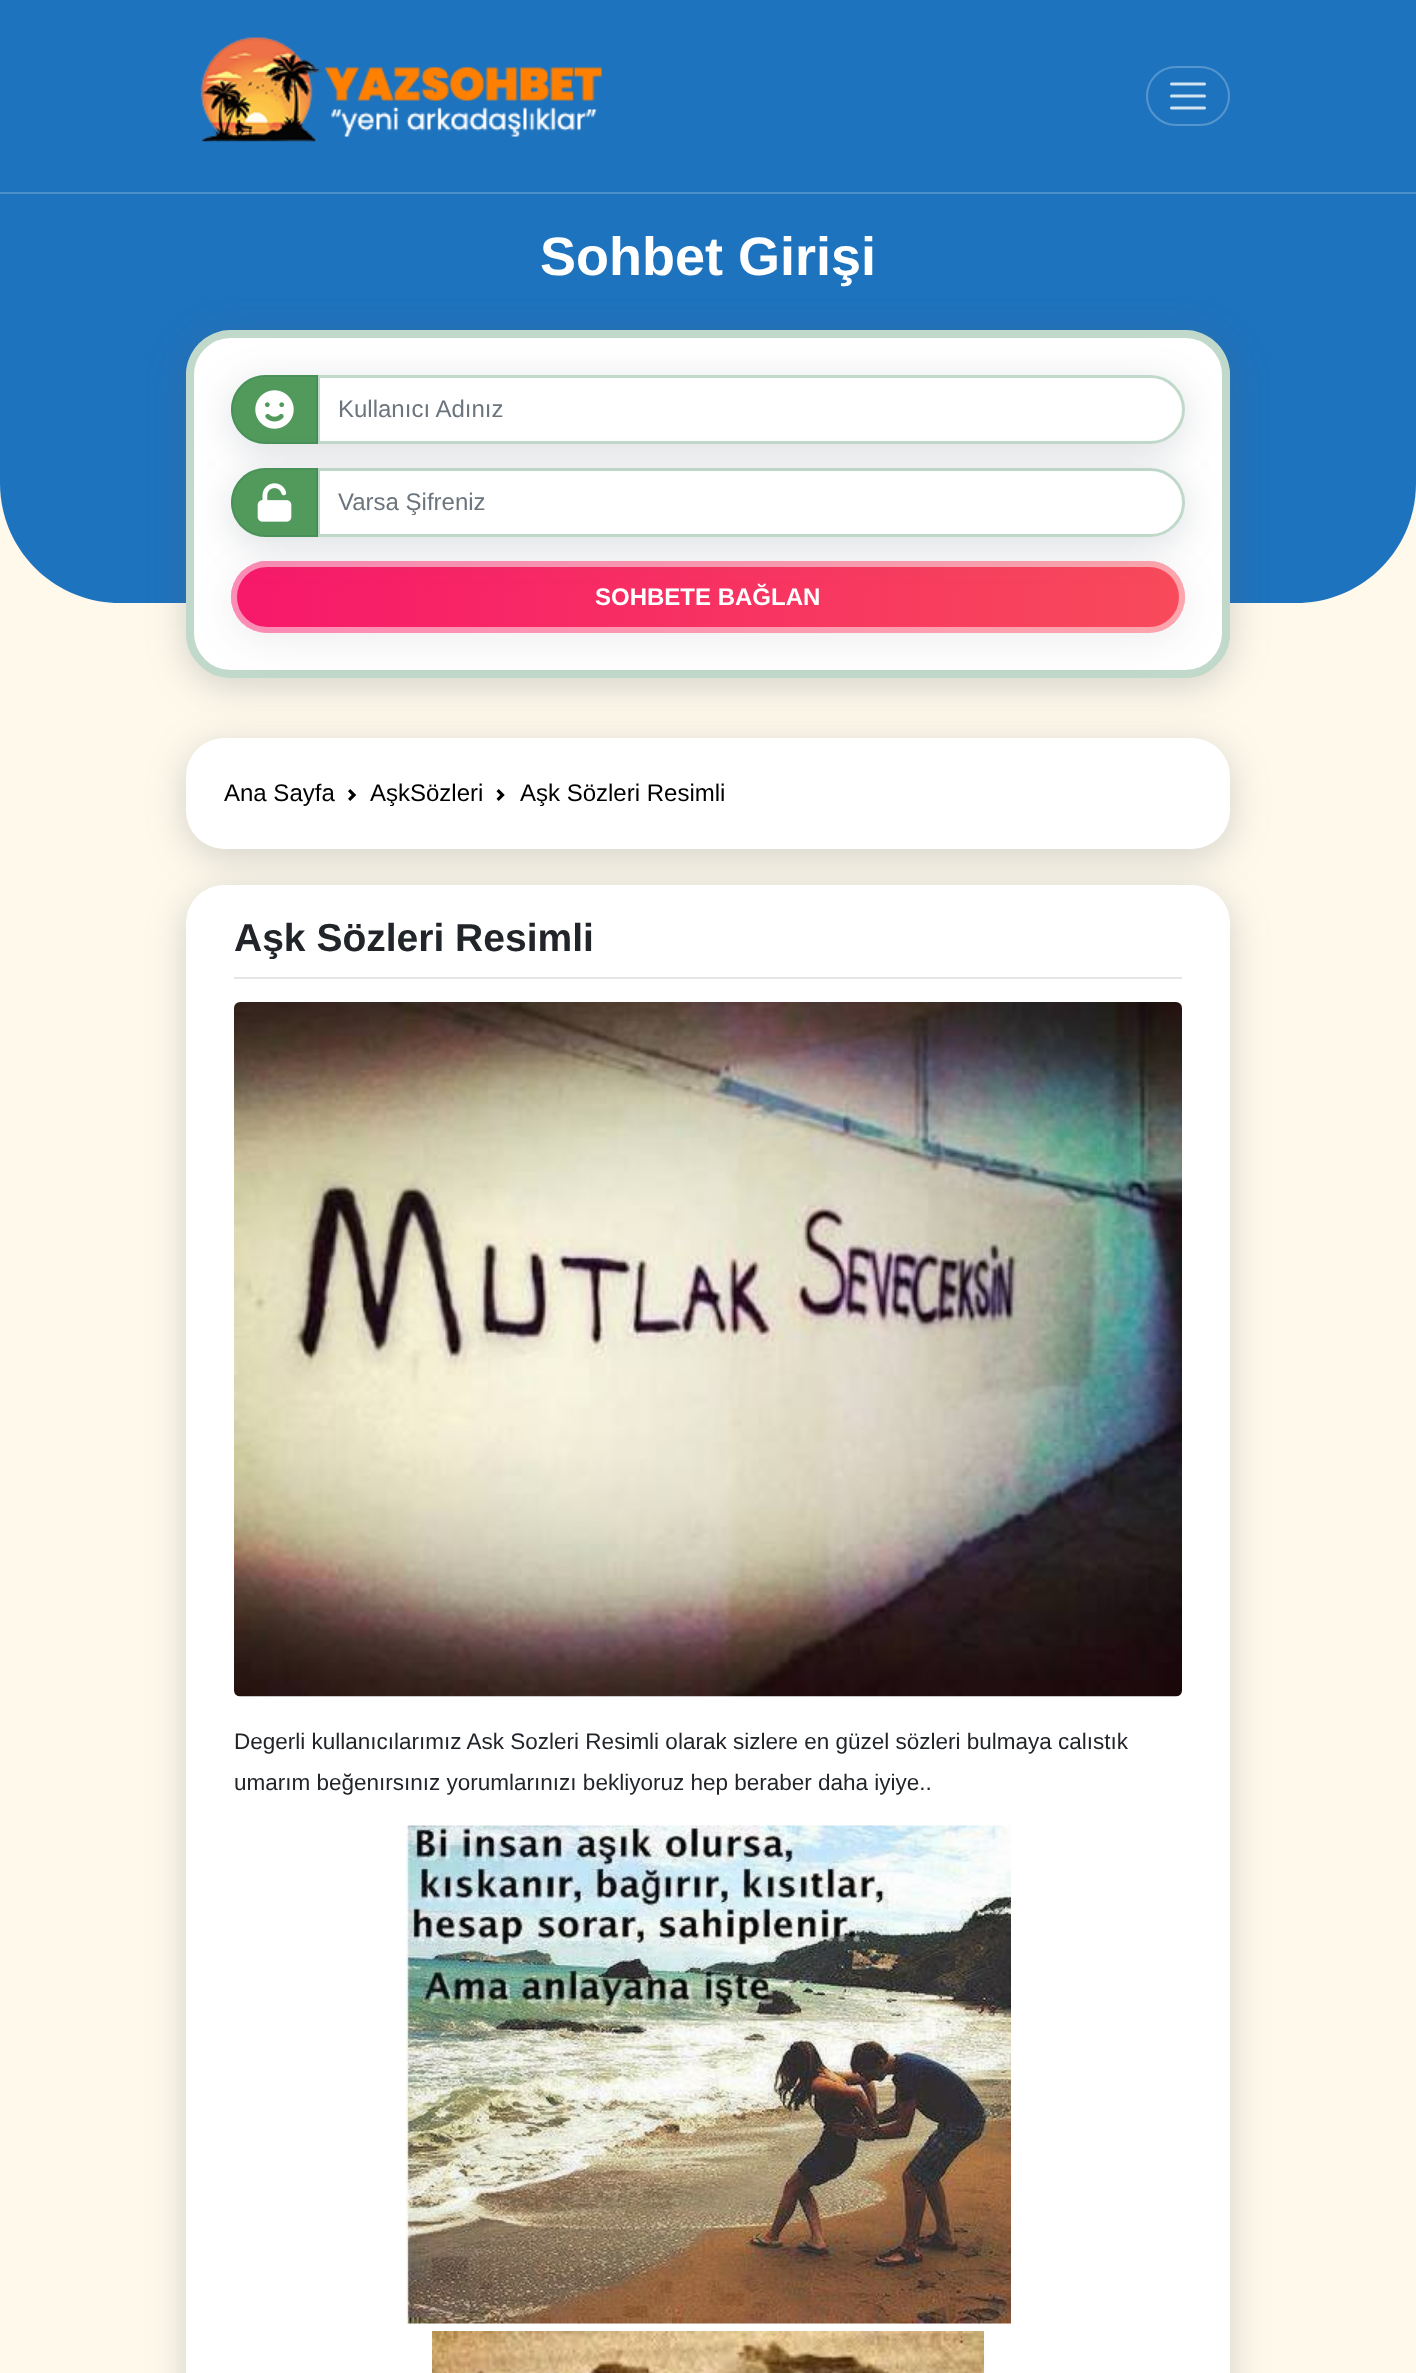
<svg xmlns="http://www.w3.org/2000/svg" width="1416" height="2373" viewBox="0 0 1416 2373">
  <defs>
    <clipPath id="clip1"><path d="M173 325H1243V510H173ZM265.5 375H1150.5C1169.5 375 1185 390.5 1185 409.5C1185 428.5 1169.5 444 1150.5 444H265.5C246.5 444 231 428.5 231 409.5C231 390.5 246.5 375 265.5 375Z" clip-rule="evenodd"/></clipPath>
    <linearGradient id="g1" gradientUnits="userSpaceOnUse" x1="231" y1="597" x2="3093" y2="597"><stop offset="0" stop-color="#f7186a"/><stop offset="1" stop-color="#fbb03b"/></linearGradient>
    <clipPath id="clip2"><path d="M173 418H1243V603H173ZM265.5 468H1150.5C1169.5 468 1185 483.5 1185 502.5C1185 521.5 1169.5 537 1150.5 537H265.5C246.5 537 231 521.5 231 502.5C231 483.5 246.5 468 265.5 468Z" clip-rule="evenodd"/></clipPath>
  </defs>
  <rect width="100%" height="100%" fill="#fef9eb"/>
  <path d="M0 0h1416v192H0z" fill="#1e73be"/>
  <path d="M0 192h1416v2H0z" fill="#4b8fcb"/>
  <image x="200" y="37" width="402" height="105" href="img/1.png"/>
  <rect x="1147" y="67" width="82" height="58" rx="29" fill="none" stroke="#5696ce" stroke-width="2"/>
  <path d="M1171.5 84H1204.5M1171.5 96H1204.5M1171.5 108H1204.5" fill="none" stroke="#d2e3f2" stroke-width="3" stroke-linecap="round"/>
  <path d="M0 194H1416V483C1416 549.5 1362.5 603 1296 603H120C53.5 603 0 549.5 0 483Z" fill="#1e73be"/>
  <rect x="186" y="338" width="1044" height="348" rx="45" fill="#565d6d40" filter="blur(19px)"/>
  <rect x="186" y="330" width="1044" height="348" rx="45" fill="#fff"/>
  <rect x="190" y="334" width="1036" height="340" rx="41" fill="none" stroke="#31824f4d" stroke-width="8"/>
  <g clip-path="url(#clip1)">
    <rect x="231" y="383" width="954" height="69" rx="34.5" fill="#565d6d33" filter="blur(19px)"/>
  </g>
  <path d="M265.5 375H318V444H265.5C246.5 444 231 428.5 231 409.5C231 390.5 246.5 375 265.5 375Z" fill="#52995c"/>
  <path d="M265.5 376H317V443H265.5C247 443 232 428 232 409.5C232 391 247 376 265.5 376Z" fill="none" stroke="#31824f4d" stroke-width="2"/>
  <image x="255" y="390" width="39" height="39" href="img/2.png"/>
  <path d="M318.5 376.5H1150.5C1168.5 376.5 1183.5 391.5 1183.5 409.5C1183.5 427.5 1168.5 442.5 1150.5 442.5H318.5Z" fill="none" stroke="#31824f4d" stroke-width="3"/>
  <rect x="231" y="569" width="954" height="72" rx="36" fill="#565d6d1a" filter="blur(19px)"/>
  <rect x="231" y="561" width="954" height="72" rx="36" fill="url(#g1)"/>
  <rect x="234" y="564" width="948" height="66" rx="33" fill="none" stroke="#ffffff80" stroke-width="6"/>
  <g clip-path="url(#clip2)">
    <rect x="231" y="476" width="954" height="69" rx="34.5" fill="#565d6d33" filter="blur(19px)"/>
  </g>
  <path d="M265.5 468H318V537H265.5C246.5 537 231 521.5 231 502.5C231 483.5 246.5 468 265.5 468Z" fill="#52995c"/>
  <path d="M265.5 469H317V536H265.5C247 536 232 521 232 502.5C232 484 247 469 265.5 469Z" fill="none" stroke="#31824f4d" stroke-width="2"/>
  <image x="257" y="483" width="35" height="39" href="img/3.png"/>
  <path d="M320 471H1150.5C1168 471 1182 485 1182 502.5C1182 520 1168 534 1150.5 534H320Z" fill="#fff"/>
  <path d="M318.5 469.5H1150.5C1168.5 469.5 1183.5 484.5 1183.5 502.5C1183.5 520.5 1168.5 535.5 1150.5 535.5H318.5Z" fill="none" stroke="#31824f4d" stroke-width="3"/>
  <rect x="186" y="746" width="1044" height="111" rx="38" fill="#565d6d40" filter="blur(19px)"/>
  <rect x="186" y="738" width="1044" height="111" rx="38" fill="#fff"/>
  <image x="348" y="789" width="8" height="12" href="img/4.png"/>
  <image x="496" y="789" width="9" height="12" href="img/5.png"/>
  <rect x="186" y="893" width="1044" height="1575" rx="38" fill="#565d6d40" filter="blur(19px)"/>
  <rect x="186" y="885" width="1044" height="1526" rx="38" fill="#fff"/>
  <path d="M234 977h948v2H234z" fill="#e5e5e5"/>
  <image x="234" y="1002" width="948" height="695" href="img/6.png"/>
  <image x="406" y="1825" width="605" height="499" href="img/7.png"/>
  <image x="432" y="2331" width="552" height="42" href="img/8.png"/>
  <text x="540" y="275" font-family="Liberation Sans" font-size="54" font-weight="bold" fill="#fff">Sohbet Girişi</text>
  <g font-family="Liberation Sans" font-size="24" fill="#6c757d">
    <text x="338" y="417">Kullanıcı Adınız</text>
    <text x="338" y="510">Varsa Şifreniz</text>
  </g>
  <text x="595" y="605" font-family="Liberation Sans" font-size="24" font-weight="bold" fill="#fff">SOHBETE BAĞLAN</text>
  <g font-family="Liberation Sans" font-size="24" fill="#000">
    <text x="224" y="801">Ana Sayfa</text>
    <text x="370" y="801">AşkSözleri</text>
    <text x="520" y="801">Aşk Sözleri Resimli</text>
  </g>
  <text x="234" y="951" font-family="Liberation Sans" font-size="39" font-weight="bold" fill="#212529">Aşk Sözleri Resimli</text>
  <g font-family="Liberation Sans" font-size="22.5" fill="#212529">
    <text x="234" y="1749">Degerli kullanıcılarımız Ask Sozleri Resimli olarak sizlere en güzel sözleri bulmaya calıstık</text>
    <text x="234" y="1790">umarım beğenırsınız yorumlarınızı bekliyoruz hep beraber daha iyiye..</text>
  </g>
</svg>
